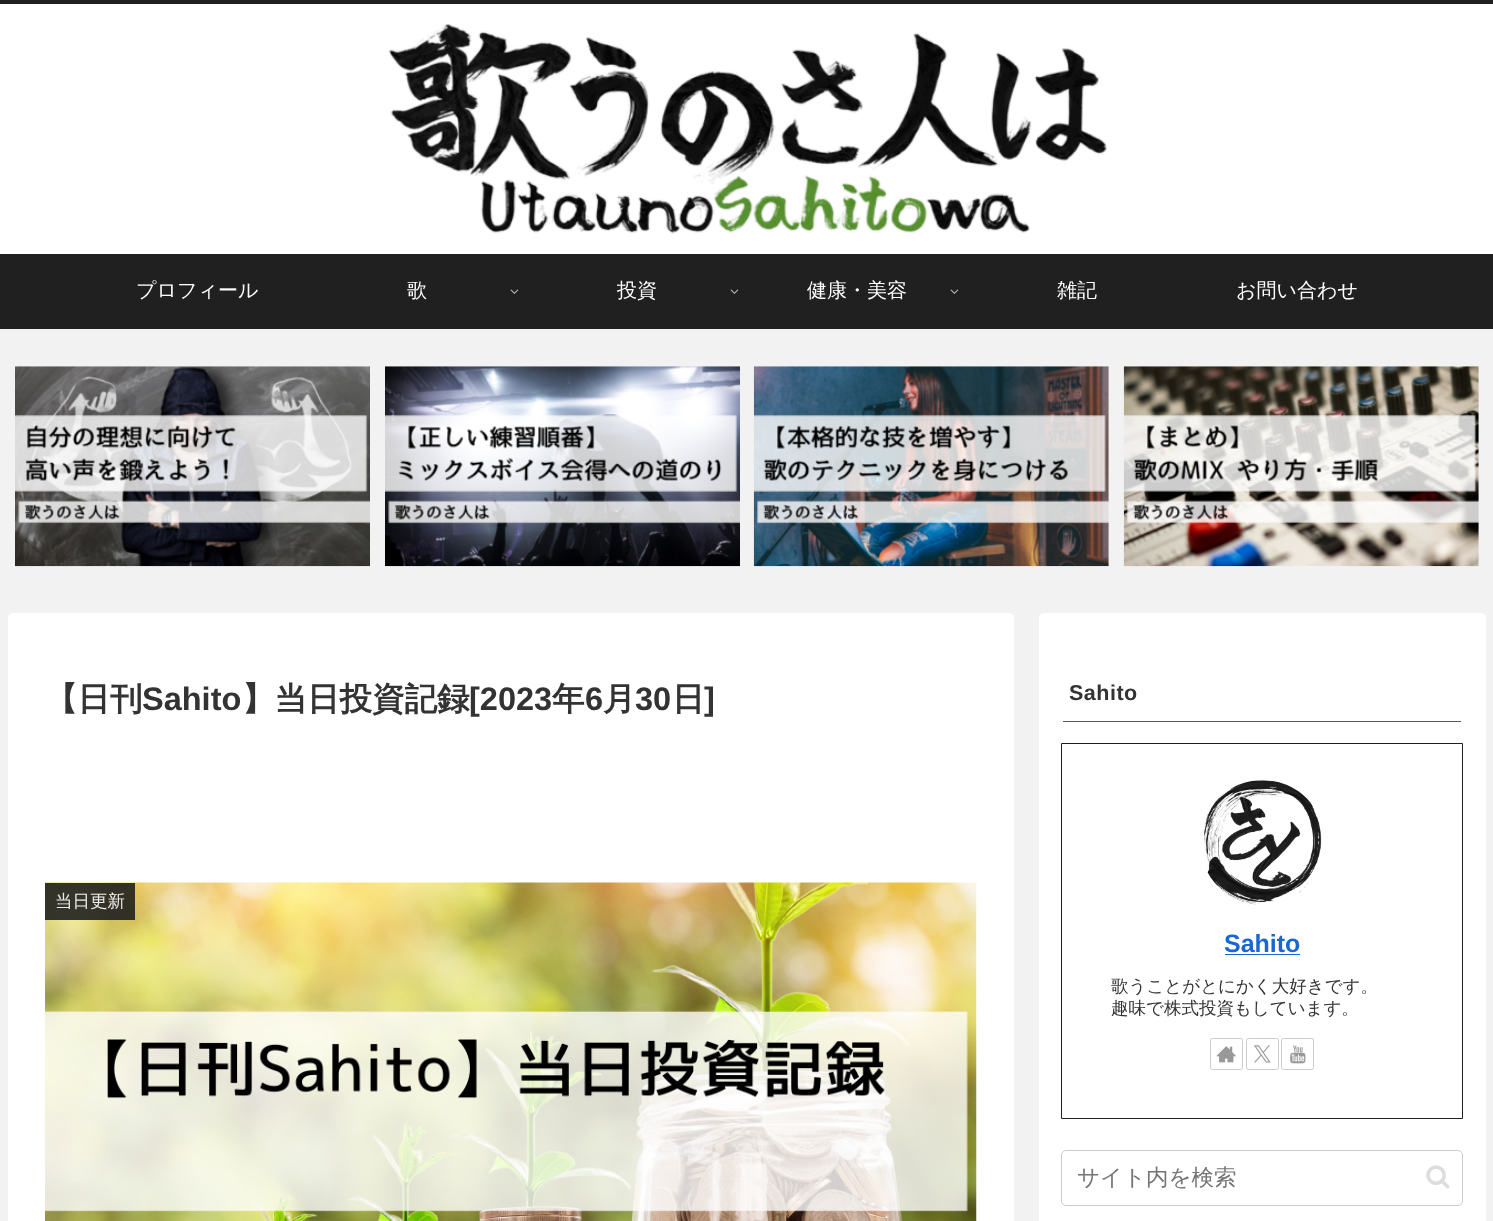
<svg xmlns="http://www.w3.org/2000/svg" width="1493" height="1221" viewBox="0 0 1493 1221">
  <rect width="100%" height="100%" fill="#f2f2f2"/>
  <path d="M0 4h1493v250H0z" fill="#fff"/>
  <path d="M0 0h1493v4H0z" fill="#202020"/>
  <image x="389" y="23" width="719" height="211" href="img/1.png"/>
  <path d="M0 254h1493v75H0z" fill="#202020"/>
  <image x="510" y="289" width="9" height="5" href="img/2.png"/>
  <image x="730" y="289" width="9" height="5" href="img/2.png"/>
  <image x="950" y="289" width="9" height="5" href="img/2.png"/>
  <image x="15" y="366" width="355" height="201" href="img/3.png"/>
  <image x="385" y="366" width="355" height="201" href="img/4.png"/>
  <image x="753" y="366" width="356" height="201" href="img/5.png"/>
  <image x="1123" y="366" width="356" height="201" href="img/6.png"/>
  <rect x="8" y="613" width="1006" height="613" rx="5" fill="#fff"/>
  <image x="45" y="882" width="932" height="339" href="img/7.png"/>
  <path d="M45 883h90v37H45z" fill="#202020e6"/>
  <rect x="1039" y="613" width="447" height="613" rx="5" fill="#fff"/>
  <path d="M1063 721h398v1H1063z" fill="#595857"/>
  <path d="M1061.5 743.5h401v375H1061.5z" fill="none" stroke="#202020"/>
  <image x="1203" y="780" width="119" height="125" href="img/8.png"/>
  <path d="M1225 954h75v1H1225z" fill="#1967d2"/>
  <rect x="1210.5" y="1038.5" width="32" height="31" rx="2" fill="none" stroke="#ccc"/>
  <image x="1216" y="1046" width="20" height="17" href="img/9.png"/>
  <rect x="1246.5" y="1038.5" width="32" height="31" rx="2" fill="none" stroke="#ccc"/>
  <image x="1254" y="1045" width="17" height="18" href="img/10.png"/>
  <rect x="1281.5" y="1038.5" width="32" height="31" rx="2" fill="none" stroke="#ccc"/>
  <image x="1290" y="1045" width="16" height="19" href="img/11.png"/>
  <rect x="1061.5" y="1150.5" width="401" height="55" rx="4.5" fill="none" stroke="#ccc"/>
  <image x="1426" y="1165" width="24" height="24" href="img/12.png"/>
  <g font-family="WenQuanYi Zen Hei" font-size="20" font-weight="500" fill="#fff">
    <text x="136" y="297">プロフィール</text>
    <text x="407" y="297">歌</text>
    <text x="617" y="297">投資</text>
    <text x="807" y="297">健康・美容</text>
    <text x="1057" y="297">雑記</text>
    <text x="1236" y="297">お問い合わせ</text>
  </g>
  <text x="45" y="710" font-family="WenQuanYi Zen Hei" font-size="32.5" font-weight="bold" fill="#333">【日刊</text>
  <text x="142" y="710" font-family="Liberation Sans" font-size="32.5" font-weight="bold" fill="#333">Sahito</text>
  <text x="242" y="710" font-family="WenQuanYi Zen Hei" font-size="32.5" font-weight="bold" fill="#333">】当日投資記録</text>
  <text x="469" y="710" font-family="Liberation Sans" font-size="32.5" font-weight="bold" fill="#333">[2023</text>
  <text x="552" y="710" font-family="WenQuanYi Zen Hei" font-size="32.5" font-weight="bold" fill="#333">年</text>
  <text x="585" y="710" font-family="Liberation Sans" font-size="32.5" font-weight="bold" fill="#333">6</text>
  <text x="603" y="710" font-family="WenQuanYi Zen Hei" font-size="32.5" font-weight="bold" fill="#333">月</text>
  <text x="635" y="710" font-family="Liberation Sans" font-size="32.5" font-weight="bold" fill="#333">30</text>
  <text x="672" y="710" font-family="WenQuanYi Zen Hei" font-size="32.5" font-weight="bold" fill="#333">日</text>
  <text x="704" y="710" font-family="Liberation Sans" font-size="32.5" font-weight="bold" fill="#333">]</text>
  <text x="55" y="907" font-family="WenQuanYi Zen Hei" font-size="17.5" font-weight="500" fill="#ebebea">当日更新</text>
  <text x="1069" y="700" font-family="Liberation Sans" font-size="21.5" font-weight="bold" letter-spacing="0.5" fill="#333">Sahito</text>
  <text x="1224" y="952" font-family="Liberation Sans" font-size="25" font-weight="bold" fill="#1967d2">Sahito</text>
  <g font-family="WenQuanYi Zen Hei" font-size="17.5" font-weight="500" fill="#333">
    <text x="1111" y="992">歌うことがとにかく大好きです。</text>
    <text x="1111" y="1014">趣味で株式投資もしています。</text>
  </g>
  <text x="1077" y="1185" font-family="WenQuanYi Zen Hei" font-size="22.5" font-weight="500" fill="#757575">サイト内を検索</text>
</svg>
